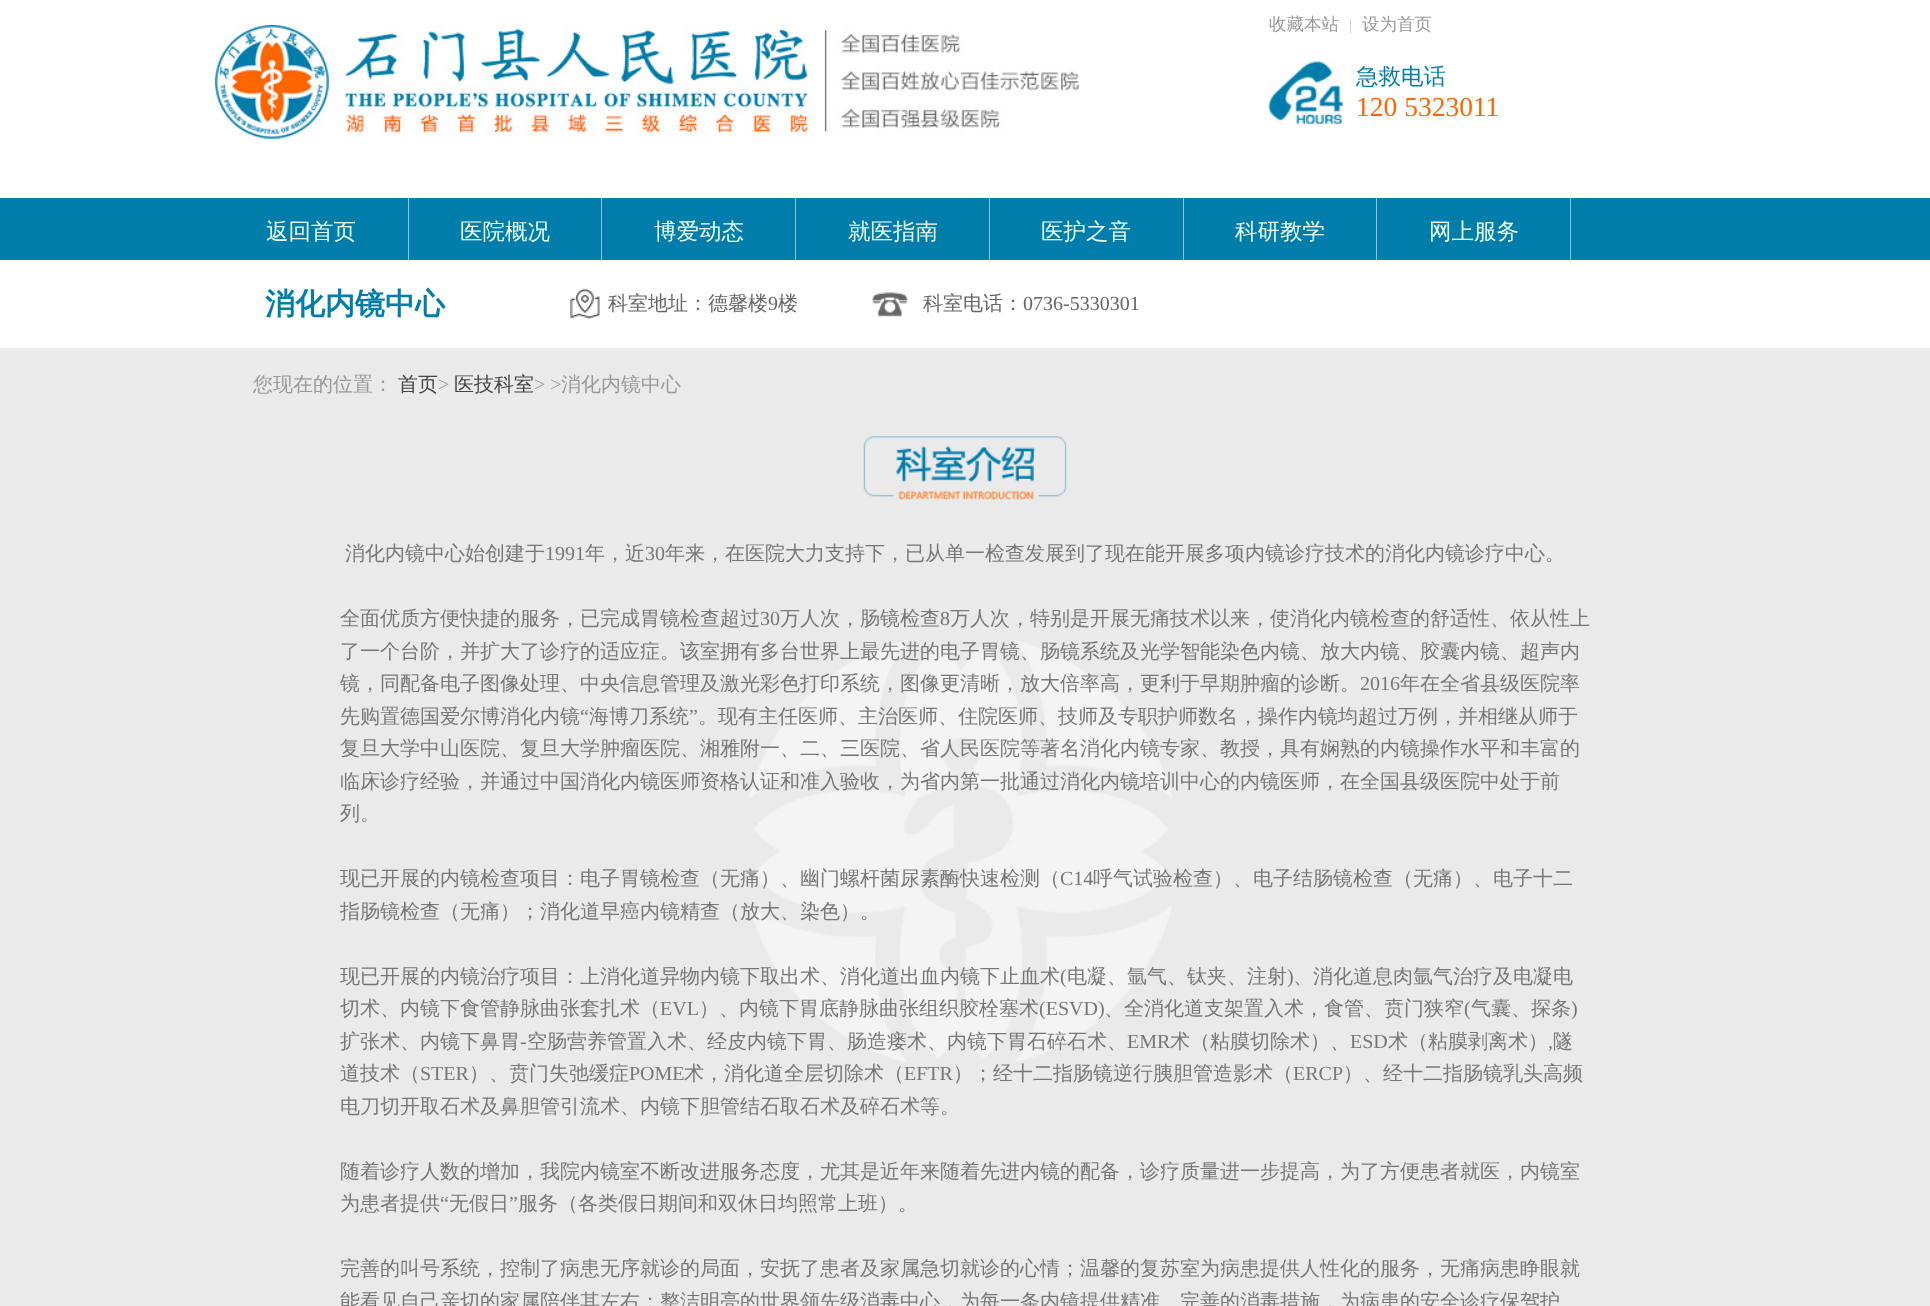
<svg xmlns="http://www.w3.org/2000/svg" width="1930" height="1306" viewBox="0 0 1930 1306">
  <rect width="100%" height="100%" fill="#fff"/>
  <image x="215" y="25" width="864" height="114" href="img/1.png"/>
  <image x="1268" y="61" width="76" height="63" href="img/2.png"/>
  <path d="M0 198h1930v62H0z" fill="#007dab"/>
  <path d="M408 198h1v62H408z" fill="#8cc5d9"/>
  <path d="M601 198h1v62H601z" fill="#8cc5d9"/>
  <path d="M795 198h1v62H795z" fill="#8cc5d9"/>
  <path d="M989 198h1v62H989z" fill="#8cc5d9"/>
  <path d="M1183 198h1v62H1183z" fill="#8cc5d9"/>
  <path d="M1376 198h1v62H1376z" fill="#8cc5d9"/>
  <path d="M1570 198h1v62H1570z" fill="#8cc5d9"/>
  <image x="570" y="288" width="30" height="31" href="img/3.png"/>
  <image x="872" y="292" width="36" height="25" href="img/4.png"/>
  <path d="M0 348h1930v958H0z" fill="#eaeaea"/>
  <image x="749" y="640" width="423" height="422" href="img/5.png"/>
  <image x="863" y="436" width="204" height="64" href="img/6.png"/>
  <text x="1269" y="30" font-family="WenQuanYi Zen Hei" font-size="17.5" font-weight="500" fill="#999">收藏本站</text>
  <text x="1349" y="30" font-family="Liberation Serif" font-size="15" fill="#c2c2c2">|</text>
  <text x="1362" y="30" font-family="WenQuanYi Zen Hei" font-size="17.5" font-weight="500" fill="#999">设为首页</text>
  <text x="1356" y="84" font-family="WenQuanYi Zen Hei" font-size="22.5" font-weight="500" fill="#007dab">急救电话</text>
  <text x="1356" y="116" font-family="Liberation Serif" font-size="27.5" fill="#f60">120 5323011</text>
  <g font-family="WenQuanYi Zen Hei" font-size="22.5" font-weight="500" fill="#eaffed">
    <text x="266" y="239">返回首页</text>
    <text x="460" y="239">医院概况</text>
    <text x="654" y="239">博爱动态</text>
    <text x="848" y="239">就医指南</text>
    <text x="1041" y="239">医护之音</text>
    <text x="1235" y="239">科研教学</text>
    <text x="1429" y="239">网上服务</text>
  </g>
  <text x="265" y="314" font-family="WenQuanYi Zen Hei" font-size="30" font-weight="bold" fill="#007dab">消化内镜中心</text>
  <text x="608" y="310" font-family="WenQuanYi Zen Hei" font-size="20" font-weight="500" fill="#666">科室地址：德馨楼</text>
  <text x="768" y="310" font-family="Liberation Serif" font-size="20" fill="#666">9</text>
  <g font-family="WenQuanYi Zen Hei" font-size="20" font-weight="500" fill="#666">
    <text x="778" y="310">楼</text>
    <text x="923" y="310">科室电话：</text>
  </g>
  <text x="1023" y="310" font-family="Liberation Serif" font-size="20" fill="#666">0736-5330301</text>
  <text x="253" y="391" font-family="WenQuanYi Zen Hei" font-size="20" font-weight="500" fill="#999">您现在的位置：</text>
  <text x="398" y="391" font-family="WenQuanYi Zen Hei" font-size="20" font-weight="500" fill="#444">首页</text>
  <text x="438" y="391" font-family="Liberation Serif" font-size="20" fill="#999">&gt;</text>
  <text x="454" y="391" font-family="WenQuanYi Zen Hei" font-size="20" font-weight="500" fill="#444">医技科室</text>
  <text x="534" y="391" font-family="Liberation Serif" font-size="20" fill="#999">&gt; &gt;</text>
  <text x="561" y="391" font-family="WenQuanYi Zen Hei" font-size="20" font-weight="500" fill="#999">消化内镜中心</text>
  <text x="345" y="560" font-family="WenQuanYi Zen Hei" font-size="20" font-weight="500" fill="#777">消化内镜中心始创建于</text>
  <text x="545" y="560" font-family="Liberation Serif" font-size="20" fill="#777">1991</text>
  <text x="585" y="560" font-family="WenQuanYi Zen Hei" font-size="20" font-weight="500" fill="#777">年，近</text>
  <text x="645" y="560" font-family="Liberation Serif" font-size="20" fill="#777">30</text>
  <g font-family="WenQuanYi Zen Hei" font-size="20" font-weight="500" fill="#777">
    <text x="665" y="560">年来，在医院大力支持下，已从单一检查发展到了现在能开展多项内镜诊疗技术的消化内镜诊疗中心。</text>
    <text x="340" y="625">全面优质方便快捷的服务，已完成胃镜检查超过</text>
  </g>
  <text x="760" y="625" font-family="Liberation Serif" font-size="20" fill="#777">30</text>
  <text x="780" y="625" font-family="WenQuanYi Zen Hei" font-size="20" font-weight="500" fill="#777">万人次，肠镜检查</text>
  <text x="940" y="625" font-family="Liberation Serif" font-size="20" fill="#777">8</text>
  <g font-family="WenQuanYi Zen Hei" font-size="20" font-weight="500" fill="#777">
    <text x="950" y="625">万人次，特别是开展无痛技术以来，使消化内镜检查的舒适性、依从性上</text>
    <text x="340" y="658">了一个台阶，并扩大了诊疗的适应症。该室拥有多台世界上最先进的电子胃镜、肠镜系统及光学智能染色内镜、放大内镜、胶囊内镜、超声内</text>
    <text x="340" y="690">镜，同配备电子图像处理、中央信息管理及激光彩色打印系统，图像更清晰，放大倍率高，更利于早期肿瘤的诊断。</text>
  </g>
  <text x="1360" y="690" font-family="Liberation Serif" font-size="20" fill="#777">2016</text>
  <g font-family="WenQuanYi Zen Hei" font-size="20" font-weight="500" fill="#777">
    <text x="1400" y="690">年在全省县级医院率</text>
    <text x="340" y="723">先购置德国爱尔博消化内镜</text>
  </g>
  <text x="580" y="723" font-family="Liberation Serif" font-size="20" fill="#777">“</text>
  <text x="589" y="723" font-family="WenQuanYi Zen Hei" font-size="20" font-weight="500" fill="#777">海博刀系统</text>
  <text x="689" y="723" font-family="Liberation Serif" font-size="20" fill="#777">”</text>
  <g font-family="WenQuanYi Zen Hei" font-size="20" font-weight="500" fill="#777">
    <text x="698" y="723">。现有主任医师、主治医师、住院医师、技师及专职护师数名，操作内镜均超过万例，并相继从师于</text>
    <text x="340" y="755">复旦大学中山医院、复旦大学肿瘤医院、湘雅附一、二、三医院、省人民医院等著名消化内镜专家、教授，具有娴熟的内镜操作水平和丰富的</text>
    <text x="340" y="788">临床诊疗经验，并通过中国消化内镜医师资格认证和准入验收，为省内第一批通过消化内镜培训中心的内镜医师，在全国县级医院中处于前</text>
    <text x="340" y="820">列。</text>
    <text x="340" y="885">现已开展的内镜检查项目：电子胃镜检查（无痛）、幽门螺杆菌尿素酶快速检测（</text>
  </g>
  <text x="1060" y="885" font-family="Liberation Serif" font-size="20" fill="#777">C14</text>
  <g font-family="WenQuanYi Zen Hei" font-size="20" font-weight="500" fill="#777">
    <text x="1093" y="885">呼气试验检查）、电子结肠镜检查（无痛）、电子十二</text>
    <text x="340" y="918">指肠镜检查（无痛）；消化道早癌内镜精查（放大、染色）。</text>
    <text x="340" y="983">现已开展的内镜治疗项目：上消化道异物内镜下取出术、消化道出血内镜下止血术</text>
  </g>
  <text x="1060" y="983" font-family="Liberation Serif" font-size="20" fill="#777">(</text>
  <text x="1067" y="983" font-family="WenQuanYi Zen Hei" font-size="20" font-weight="500" fill="#777">电凝、氩气、钛夹、注射</text>
  <text x="1287" y="983" font-family="Liberation Serif" font-size="20" fill="#777">)</text>
  <g font-family="WenQuanYi Zen Hei" font-size="20" font-weight="500" fill="#777">
    <text x="1293" y="983">、消化道息肉氩气治疗及电凝电</text>
    <text x="340" y="1015">切术、内镜下食管静脉曲张套扎术（</text>
  </g>
  <text x="660" y="1015" font-family="Liberation Serif" font-size="20" fill="#777">EVL</text>
  <text x="699" y="1015" font-family="WenQuanYi Zen Hei" font-size="20" font-weight="500" fill="#777">）、内镜下胃底静脉曲张组织胶栓塞术</text>
  <text x="1039" y="1015" font-family="Liberation Serif" font-size="20" fill="#777">(ESVD)</text>
  <text x="1104" y="1015" font-family="WenQuanYi Zen Hei" font-size="20" font-weight="500" fill="#777">、全消化道支架置入术，食管、贲门狭窄</text>
  <text x="1464" y="1015" font-family="Liberation Serif" font-size="20" fill="#777">(</text>
  <text x="1471" y="1015" font-family="WenQuanYi Zen Hei" font-size="20" font-weight="500" fill="#777">气囊、探条</text>
  <text x="1571" y="1015" font-family="Liberation Serif" font-size="20" fill="#777">)</text>
  <text x="340" y="1048" font-family="WenQuanYi Zen Hei" font-size="20" font-weight="500" fill="#777">扩张术、内镜下鼻胃</text>
  <text x="520" y="1048" font-family="Liberation Serif" font-size="20" fill="#777">-</text>
  <text x="527" y="1048" font-family="WenQuanYi Zen Hei" font-size="20" font-weight="500" fill="#777">空肠营养管置入术、经皮内镜下胃、肠造瘘术、内镜下胃石碎石术、</text>
  <text x="1127" y="1048" font-family="Liberation Serif" font-size="20" fill="#777">EMR</text>
  <text x="1170" y="1048" font-family="WenQuanYi Zen Hei" font-size="20" font-weight="500" fill="#777">术（粘膜切除术）、</text>
  <text x="1350" y="1048" font-family="Liberation Serif" font-size="20" fill="#777">ESD</text>
  <g font-family="WenQuanYi Zen Hei" font-size="20" font-weight="500" fill="#777">
    <text x="1388" y="1048">术（粘膜剥离术）</text>
    <text x="1553" y="1048">隧</text>
  </g>
  <text x="1548" y="1048" font-family="Liberation Serif" font-size="20" fill="#777">,</text>
  <text x="340" y="1080" font-family="WenQuanYi Zen Hei" font-size="20" font-weight="500" fill="#777">道技术（</text>
  <text x="420" y="1080" font-family="Liberation Serif" font-size="20" fill="#777">STER</text>
  <text x="469" y="1080" font-family="WenQuanYi Zen Hei" font-size="20" font-weight="500" fill="#777">）、贲门失弛缓症</text>
  <text x="629" y="1080" font-family="Liberation Serif" font-size="20" fill="#777">POME</text>
  <text x="684" y="1080" font-family="WenQuanYi Zen Hei" font-size="20" font-weight="500" fill="#777">术，消化道全层切除术（</text>
  <text x="904" y="1080" font-family="Liberation Serif" font-size="20" fill="#777">EFTR</text>
  <text x="953" y="1080" font-family="WenQuanYi Zen Hei" font-size="20" font-weight="500" fill="#777">）；经十二指肠镜逆行胰胆管造影术（</text>
  <text x="1293" y="1080" font-family="Liberation Serif" font-size="20" fill="#777">ERCP</text>
  <g font-family="WenQuanYi Zen Hei" font-size="20" font-weight="500" fill="#777">
    <text x="1343" y="1080">）、经十二指肠镜乳头高频</text>
    <text x="340" y="1113">电刀切开取石术及鼻胆管引流术、内镜下胆管结石取石术及碎石术等。</text>
    <text x="340" y="1178">随着诊疗人数的增加，我院内镜室不断改进服务态度，尤其是近年来随着先进内镜的配备，诊疗质量进一步提高，为了方便患者就医，内镜室</text>
    <text x="340" y="1210">为患者提供</text>
  </g>
  <text x="440" y="1210" font-family="Liberation Serif" font-size="20" fill="#777">“</text>
  <text x="449" y="1210" font-family="WenQuanYi Zen Hei" font-size="20" font-weight="500" fill="#777">无假日</text>
  <text x="509" y="1210" font-family="Liberation Serif" font-size="20" fill="#777">”</text>
  <g font-family="WenQuanYi Zen Hei" font-size="20" font-weight="500" fill="#777">
    <text x="518" y="1210">服务（各类假日期间和双休日均照常上班）。</text>
    <text x="340" y="1275">完善的叫号系统，控制了病患无序就诊的局面，安抚了患者及家属急切就诊的心情；温馨的复苏室为病患提供人性化的服务，无痛病患睁眼就</text>
    <text x="340" y="1308">能看见自己亲切的家属陪伴其左右；整洁明亮的世界领先级消毒中心，为每一条内镜提供精准、完善的消毒措施，为病患的安全诊疗保驾护</text>
  </g>
</svg>
